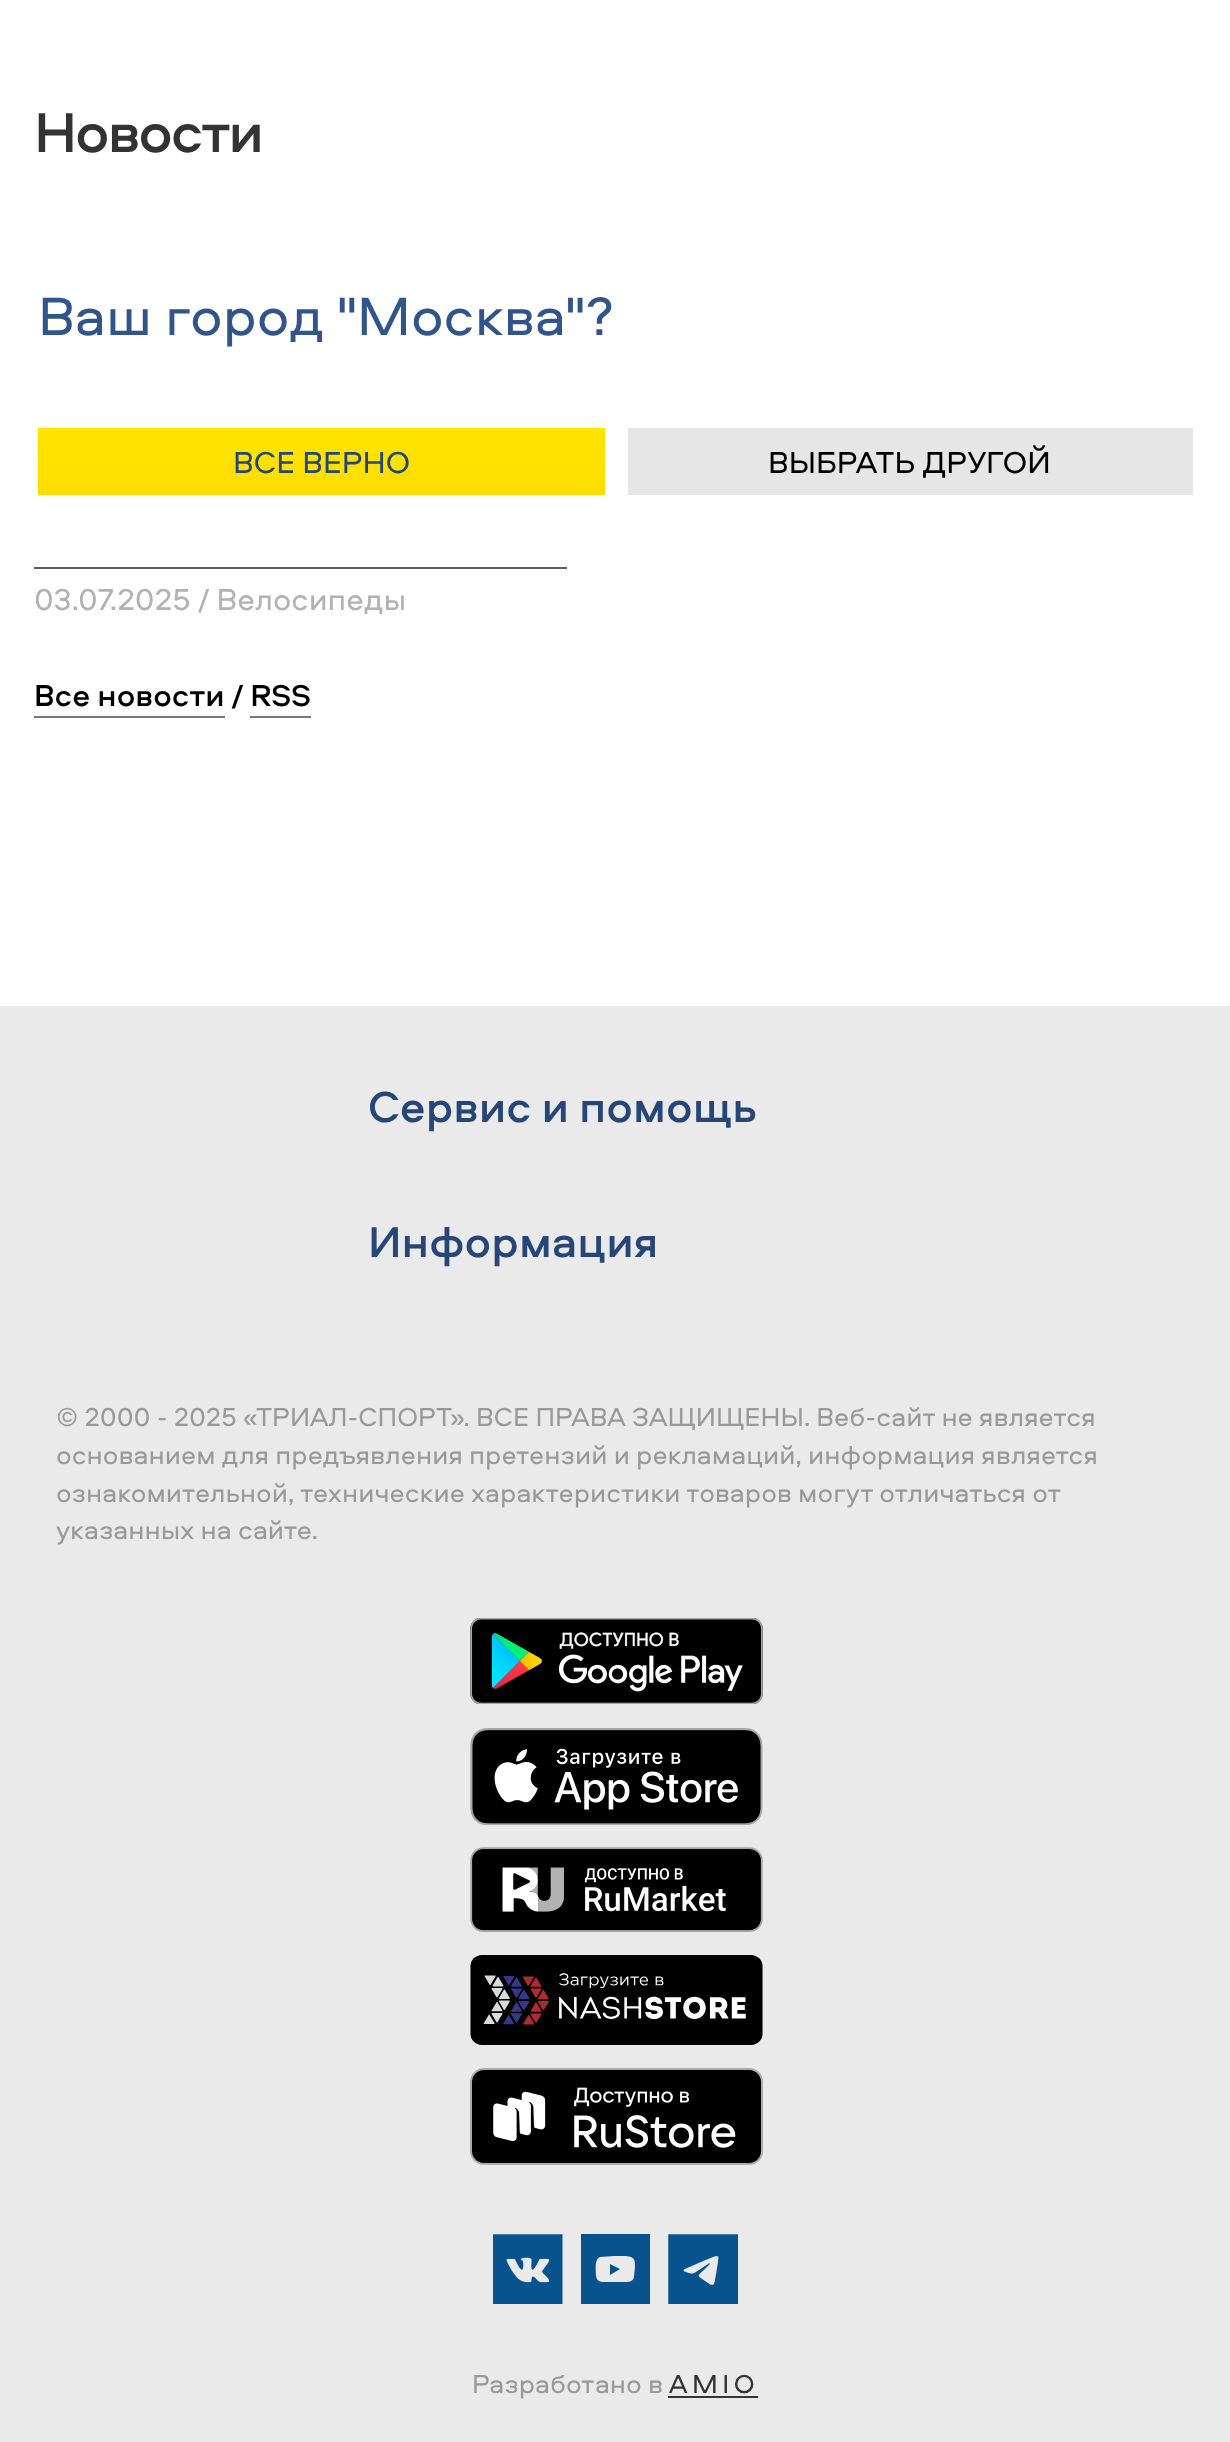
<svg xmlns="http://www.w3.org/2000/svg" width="1230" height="2442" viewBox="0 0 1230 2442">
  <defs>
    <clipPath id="clip1"><path d="M581 2234h69v70H581z"/></clipPath>
    <linearGradient id="g1" gradientUnits="userSpaceOnUse" x1="322" y1="427" x2="322" y2="495"><stop offset="0" stop-color="#ffe500"/><stop offset="1" stop-color="#fd0"/></linearGradient>
  </defs>
  <rect width="100%" height="100%" fill="#fff"/>
  <path d="M34 567h533v2H34z" fill="#5f5f5f"/>
  <path d="M34 716h191v2H34z" fill="#777"/>
  <path d="M250 716h61v2H250z" fill="#777"/>
  <path d="M0 1006h1230v1436H0z" fill="#eaeaea"/>
  <image x="470" y="1618" width="293" height="86" href="img/1.png"/>
  <image x="470" y="1728" width="293" height="97" href="img/2.png"/>
  <image x="470" y="1847" width="293" height="85" href="img/3.png"/>
  <image x="470" y="1955" width="293" height="90" href="img/4.png"/>
  <image x="470" y="2068" width="293" height="97" href="img/5.png"/>
  <image x="493" y="2234" width="70" height="70" href="img/6.png"/>
  <g clip-path="url(#clip1)">
    <path d="M580 2234H650V2304H580ZM596 2276C597 2282 601 2282 606 2282H624C628 2282 633 2282 634 2277L635 2266C635 2259 634 2257 626 2256H614L600 2257C594 2259 596 2272 596 2276ZM610 2275V2264L620 2269Z" fill="#08538e" fill-rule="evenodd"/>
  </g>
  <image x="668" y="2234" width="70" height="70" href="img/7.png"/>
  <path d="M668 2396h90v2H668z" fill="#333"/>
  <path d="M38 428h567v67H38z" fill="url(#g1)"/>
  <path d="M628 428h565v67H628z" fill="#e6e6e6"/>
  <text x="34" y="152" font-family="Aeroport" font-size="58.5" font-weight="500" letter-spacing="-2.25" fill="#333">Новости</text>
  <text x="34" y="610" font-family="Aeroport" font-size="31.5" fill="#b2b2b2">03.07.2025 / Велосипеды</text>
  <text x="34" y="706" font-family="Aeroport" font-size="31.5" font-weight="500" fill="#000">Все новости / RSS</text>
  <g font-family="Aeroport" font-size="45" font-weight="500" fill="#274678">
    <text x="368" y="1122">Сервис и помощь</text>
    <text x="368" y="1257">Информация</text>
  </g>
  <g font-family="Aeroport" font-size="27" fill="#999">
    <text x="56" y="1426">© 2000 - 2025 «ТРИАЛ-СПОРТ». ВСЕ ПРАВА ЗАЩИЩЕНЫ. Веб-сайт не является</text>
    <text x="56" y="1464">основанием для предъявления претензий и рекламаций, информация является</text>
    <text x="56" y="1502">ознакомительной, технические характеристики товаров могут отличаться от</text>
    <text x="56" y="1539">указанных на сайте.</text>
    <text x="472" y="2393">Разработано в</text>
  </g>
  <text x="669" y="2393" font-family="Aeroport" font-size="27" letter-spacing="4.5" fill="#333">AMIO</text>
  <text x="38" y="335" font-family="Aeroport" font-size="56.25" fill="#31548b">Ваш город "Москва"?</text>
  <text x="233" y="473" font-family="Aeroport" font-size="31.5" fill="#274678">ВСЕ ВЕРНО</text>
  <text x="768" y="473" font-family="Aeroport" font-size="31.5" fill="#000">ВЫБРАТЬ ДРУГОЙ</text>
</svg>
